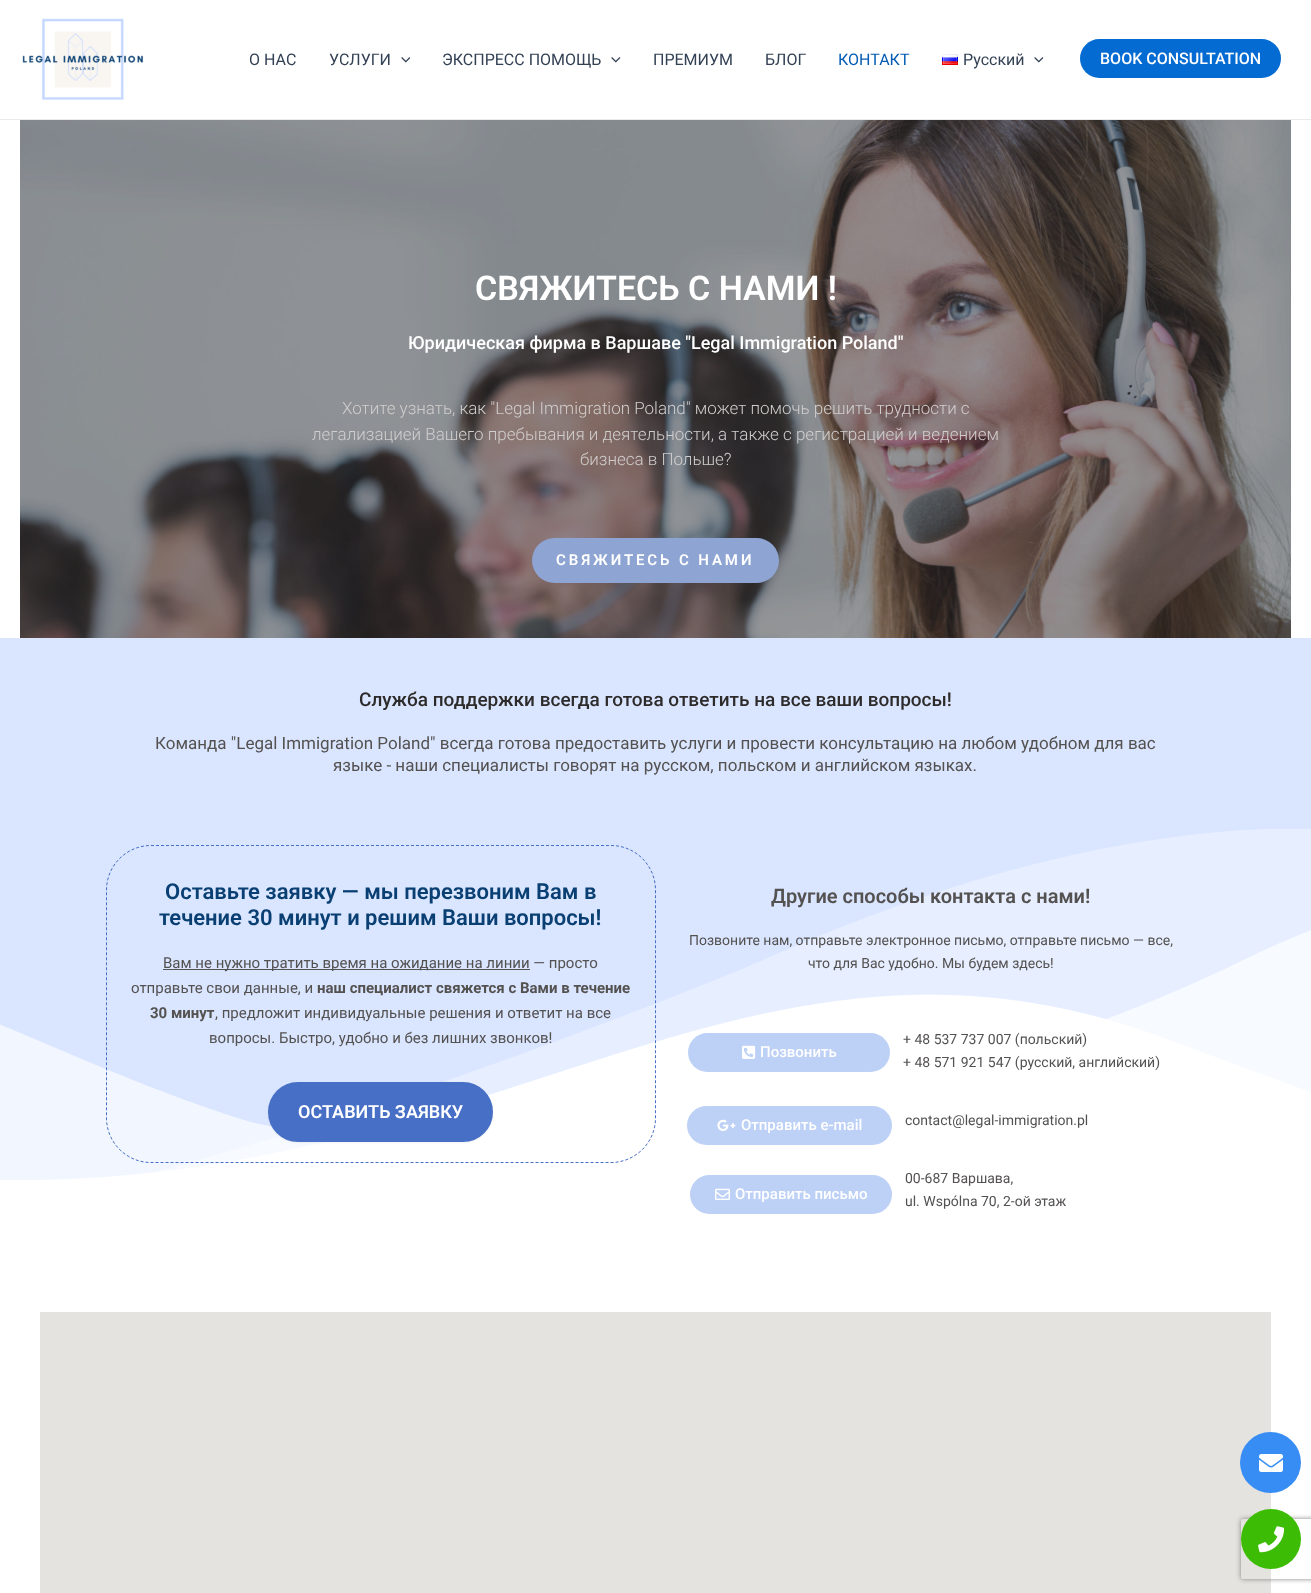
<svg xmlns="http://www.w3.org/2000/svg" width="1311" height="1593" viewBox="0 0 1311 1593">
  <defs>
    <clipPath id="clip1"><path d="M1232 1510H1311V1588H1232ZM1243 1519H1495C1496 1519 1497 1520 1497 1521V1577C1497 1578 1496 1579 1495 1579H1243C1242 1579 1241 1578 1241 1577V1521C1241 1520 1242 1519 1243 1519Z" clip-rule="evenodd"/></clipPath>
  </defs>
  <rect width="100%" height="100%" fill="#fff"/>
  <path d="M0 119h1311v1H0z" fill="#eaeaea"/>
  <image x="22" y="18" width="122" height="82" href="img/1.png"/>
  <image x="401" y="57" width="9" height="6" href="img/2.png"/>
  <image x="611" y="57" width="10" height="6" href="img/3.png"/>
  <image x="942" y="54" width="16" height="11" href="img/4.png"/>
  <image x="1034" y="57" width="10" height="6" href="img/3.png"/>
  <rect x="1080" y="39" width="201" height="39" rx="19.5" fill="#046bd2"/>
  <image x="20" y="120" width="1271" height="518" href="img/5.png"/>
  <rect x="532" y="538" width="247" height="45" rx="22.5" fill="#8ea4d2"/>
  <path d="M0 638h1311v543H0z" fill="#dae6ff"/>
  <image x="0" y="829" width="1311" height="405" href="img/6.png"/>
  <path d="M151 845.5H611C635.5 845.5 655.5 865.5 655.5 890V1118C655.5 1142.5 635.5 1162.5 611 1162.5H151C126.5 1162.5 106.5 1142.5 106.5 1118V890C106.5 865.5 126.5 845.5 151 845.5Z" fill="none" stroke="#466fc5" stroke-dasharray="3 2"/>
  <path d="M163 969h367v1H163z" fill="#545151"/>
  <rect x="268" y="1083" width="225" height="60" rx="30" fill="#0000000d" filter="blur(1px)"/>
  <rect x="269" y="1083" width="223" height="58" rx="29" fill="#466fc5" stroke="#466fc5" stroke-width="2"/>
  <rect x="688" y="1033" width="202" height="39" rx="19.5" fill="#bdd0f6"/>
  <image x="742" y="1045" width="14" height="14" href="img/7.png"/>
  <rect x="687" y="1106" width="205" height="39" rx="19.5" fill="#bdd0f6"/>
  <image x="717" y="1119" width="19" height="12" href="img/8.png"/>
  <rect x="690" y="1175" width="202" height="39" rx="19.5" fill="#bdd0f6"/>
  <image x="715" y="1188" width="15" height="12" href="img/9.png"/>
  <path d="M40 1312h1231v281H40z" fill="#e5e3df"/>
  <circle cx="1270.5" cy="1462.5" r="30.5" fill="#388df4"/>
  <image x="1259" y="1454" width="24" height="18" href="img/10.png"/>
  <g clip-path="url(#clip1)">
    <rect x="1241" y="1519" width="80" height="60" rx="2" fill="#808080" filter="blur(2.5px)"/>
  </g>
  <circle cx="1271" cy="1539" r="30" fill="#3cbc04"/>
  <image x="1258" y="1526" width="26" height="27" href="img/11.png"/>
  <g font-family="Roboto" font-size="16" fill="#334155">
    <text x="249" y="65">О НАС</text>
    <text x="329" y="65">УСЛУГИ</text>
    <text x="442" y="65">ЭКСПРЕСС ПОМОЩЬ</text>
    <text x="653" y="65">ПРЕМИУМ</text>
    <text x="765" y="65">БЛОГ</text>
  </g>
  <text x="838" y="65" font-family="Roboto" font-size="16" fill="#045cb4">КОНТАКТ</text>
  <text x="963" y="65" font-family="Roboto" font-size="16" fill="#334155">Русский</text>
  <text x="1100" y="64" font-family="Roboto" font-size="16" font-weight="500" fill="#fff">BOOK CONSULTATION</text>
  <text x="475" y="300" font-family="Roboto" font-size="34" font-weight="600" fill="#fff">СВЯЖИТЕСЬ С НАМИ !</text>
  <text x="408" y="349" font-family="Roboto" font-size="18" font-weight="500" fill="#fff">Юридическая фирма в Варшаве "Legal Immigration Poland"</text>
  <g font-family="Roboto" font-size="17" font-weight="300" fill="#d0cdcd">
    <text x="342" y="414">Хотите узнать, как "Legal Immigration Poland" может помочь решить трудности с</text>
    <text x="312" y="440">легализацией Вашего пребывания и деятельности, а также с регистрацией и ведением</text>
    <text x="580" y="465">бизнеса в Польше?</text>
  </g>
  <text x="556" y="565" font-family="Roboto" font-size="15" font-weight="600" letter-spacing="2.9" fill="#fff">СВЯЖИТЕСЬ С НАМИ</text>
  <text x="359" y="706" font-family="Roboto" font-size="19" font-weight="500" fill="#2d2a2a">Служба поддержки всегда готова ответить на все ваши вопросы!</text>
  <g font-family="Roboto" font-size="17" fill="#545151">
    <text x="155" y="749">Команда "Legal Immigration Poland" всегда готова предоставить услуги и провести консультацию на любом удобном для вас</text>
    <text x="333" y="771">языке - наши специалисты говорят на русском, польском и английском языках.</text>
  </g>
  <g font-family="Roboto" font-size="22" font-weight="600" fill="#093f72">
    <text x="165" y="899">Оставьте заявку — мы перезвоним Вам в</text>
    <text x="159" y="925">течение 30 минут и решим Ваши вопросы!</text>
  </g>
  <g font-family="Roboto" font-size="15" fill="#545151">
    <text x="163" y="968">Вам не нужно тратить время на ожидание на линии — просто</text>
    <text x="131" y="993">отправьте свои данные, и</text>
  </g>
  <g font-family="Roboto" font-size="15" font-weight="bold" fill="#545151">
    <text x="317" y="993">наш специалист свяжется с Вами в течение</text>
    <text x="150" y="1018">30 минут</text>
  </g>
  <g font-family="Roboto" font-size="15" fill="#545151">
    <text x="215" y="1018">, предложит индивидуальные решения и ответит на все</text>
    <text x="209" y="1043">вопросы. Быстро, удобно и без лишних звонков!</text>
  </g>
  <text x="298" y="1118" font-family="Roboto" font-size="18" font-weight="600" fill="#fff">ОСТАВИТЬ ЗАЯВКУ</text>
  <text x="771" y="903" font-family="Roboto" font-size="20" font-weight="600" fill="#545151">Другие способы контакта с нами!</text>
  <g font-family="Roboto" font-size="14" fill="#545151">
    <text x="689" y="945">Позвоните нам, отправьте электронное письмо, отправьте письмо — все,</text>
    <text x="808" y="968">что для Вас удобно. Мы будем здесь!</text>
  </g>
  <text x="760" y="1057" font-family="Roboto" font-size="15" font-weight="500" fill="#fff">Позвонить</text>
  <g font-family="Roboto" font-size="14" fill="#545151">
    <text x="903" y="1044">+ 48 537 737 007 (польский)</text>
    <text x="903" y="1067">+ 48 571 921 547 (русский, английский)</text>
  </g>
  <text x="741" y="1130" font-family="Roboto" font-size="15" font-weight="500" fill="#fff">Отправить e-mail</text>
  <text x="905" y="1125" font-family="Roboto" font-size="14" fill="#545151">contact@legal-immigration.pl</text>
  <text x="735" y="1199" font-family="Roboto" font-size="15" font-weight="500" fill="#fff">Отправить письмо</text>
  <g font-family="Roboto" font-size="14" fill="#545151">
    <text x="905" y="1183">00-687 Варшава,</text>
    <text x="905" y="1206">ul. Wspólna 70, 2-ой этаж</text>
  </g>
</svg>
